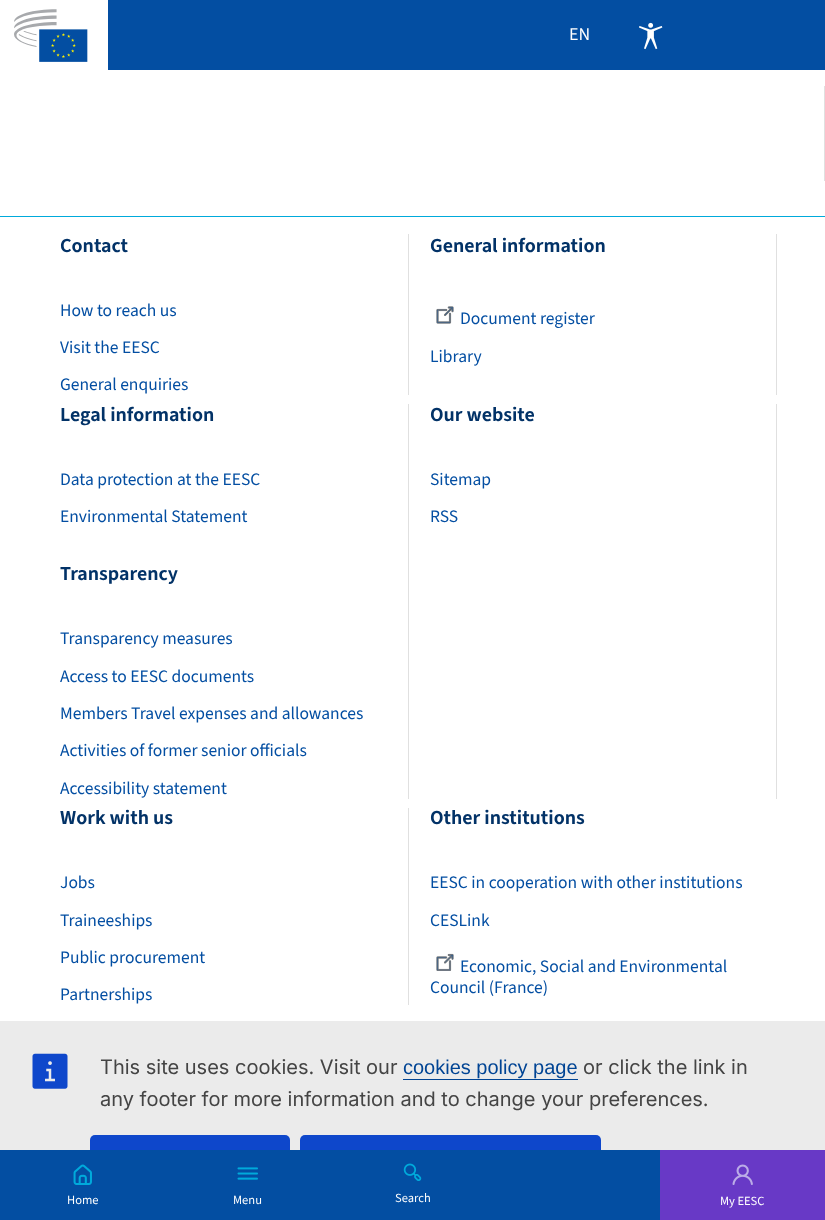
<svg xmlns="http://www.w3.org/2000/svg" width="825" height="1220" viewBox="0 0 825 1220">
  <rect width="100%" height="100%" fill="#fff"/>
  <image x="14" y="9" width="74" height="53" href="img/1.png"/>
  <path d="M108 0h717v70H108z" fill="#034ea2"/>
  <path d="M0 1021h825v129H0z" fill="#ebebeb"/>
  <rect x="90" y="1135" width="200" height="55" rx="5" fill="#0e47cb"/>
  <rect x="300" y="1135" width="301" height="55" rx="5" fill="#0e47cb"/>
  <path d="M0 1150h660v70H0z" fill="#034ea2"/>
  <image x="639" y="22" width="24" height="28" href="img/2.png"/>
  <image x="73" y="1164" width="19" height="21" href="img/3.png"/>
  <image x="237" y="1167" width="21" height="13" href="img/4.png"/>
  <image x="403" y="1163" width="19" height="18" href="img/5.png"/>
  <path d="M660 1150h165v70H660z" fill="#6839c6"/>
  <image x="732" y="1164" width="21" height="21" href="img/6.png"/>
  <path d="M824 86h1v95H824z" fill="#e0e0e0"/>
  <path d="M0 216h825v1H0z" fill="#00aadb"/>
  <path d="M408 234h1v161H408z" fill="#e0e0e0"/>
  <path d="M776 234h1v161H776z" fill="#e0e0e0"/>
  <image x="436" y="306" width="18" height="18" href="img/7.png"/>
  <path d="M408 404h1v395H408z" fill="#e0e0e0"/>
  <path d="M776 404h1v395H776z" fill="#e0e0e0"/>
  <path d="M408 808h1v197H408z" fill="#e0e0e0"/>
  <image x="436" y="953" width="18" height="18" href="img/8.png"/>
  <image x="32" y="1053" width="36" height="36" href="img/9.png"/>
  <path d="M403 1079h175v1H403z" fill="#004494"/>
  <text x="569" y="40" font-family="'Source Sans 3'" font-size="18" fill="#fefefe">EN</text>
  <g font-family="'Source Sans 3'" font-size="12.5" fill="#fefefe">
    <text x="67" y="1204">Home</text>
    <text x="233" y="1204">Menu</text>
    <text x="395" y="1202">Search</text>
    <text x="720" y="1205">My EESC</text>
  </g>
  <text x="60" y="252" font-family="'Source Sans 3'" font-size="20" font-weight="600" fill="#023267">Contact</text>
  <g font-family="'Source Sans 3'" font-size="17.5" fill="#034ea2">
    <text x="60" y="316">How to reach us</text>
    <text x="60" y="353">Visit the EESC</text>
    <text x="60" y="390">General enquiries</text>
  </g>
  <text x="430" y="252" font-family="'Source Sans 3'" font-size="20" font-weight="600" fill="#023267">General information</text>
  <g font-family="'Source Sans 3'" font-size="17.5" fill="#034ea2">
    <text x="460" y="324">Document register</text>
    <text x="430" y="362">Library</text>
  </g>
  <text x="60" y="421" font-family="'Source Sans 3'" font-size="20" font-weight="600" fill="#023267">Legal information</text>
  <g font-family="'Source Sans 3'" font-size="17.5" fill="#034ea2">
    <text x="60" y="485">Data protection at the EESC</text>
    <text x="60" y="522">Environmental Statement</text>
  </g>
  <text x="60" y="580" font-family="'Source Sans 3'" font-size="20" font-weight="600" fill="#023267">Transparency</text>
  <g font-family="'Source Sans 3'" font-size="17.5" fill="#034ea2">
    <text x="60" y="644">Transparency measures</text>
    <text x="60" y="682">Access to EESC documents</text>
    <text x="60" y="719">Members Travel expenses and allowances</text>
    <text x="60" y="756">Activities of former senior officials</text>
    <text x="60" y="794">Accessibility statement</text>
  </g>
  <text x="430" y="421" font-family="'Source Sans 3'" font-size="20" font-weight="600" fill="#023267">Our website</text>
  <g font-family="'Source Sans 3'" font-size="17.5" fill="#034ea2">
    <text x="430" y="485">Sitemap</text>
    <text x="430" y="522">RSS</text>
  </g>
  <text x="60" y="824" font-family="'Source Sans 3'" font-size="20" font-weight="600" fill="#023267">Work with us</text>
  <g font-family="'Source Sans 3'" font-size="17.5" fill="#034ea2">
    <text x="60" y="888">Jobs</text>
    <text x="60" y="926">Traineeships</text>
    <text x="60" y="963">Public procurement</text>
    <text x="60" y="1000">Partnerships</text>
  </g>
  <text x="430" y="824" font-family="'Source Sans 3'" font-size="20" font-weight="600" fill="#023267">Other institutions</text>
  <g font-family="'Source Sans 3'" font-size="17.5" fill="#034ea2">
    <text x="430" y="888">EESC in cooperation with other institutions</text>
    <text x="430" y="926">CESLink</text>
    <text x="460" y="972">Economic, Social and Environmental</text>
    <text x="430" y="993">Council (France)</text>
  </g>
  <text x="100" y="1074" font-family="Inter" font-size="20" fill="#444">This site uses cookies. Visit our</text>
  <text x="403" y="1074" font-family="Liberation Sans" font-size="20" fill="#004494">cookies policy page</text>
  <g font-family="Inter" font-size="20" fill="#444">
    <text x="583" y="1074">or click the link in</text>
    <text x="100" y="1106">any footer for more information and to change your preferences.</text>
  </g>
</svg>
